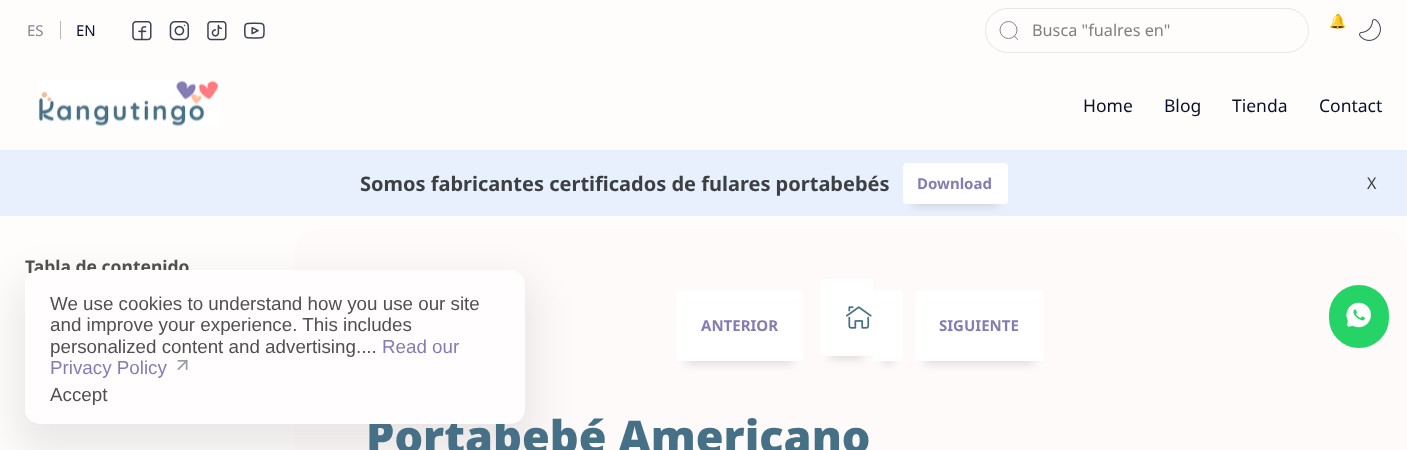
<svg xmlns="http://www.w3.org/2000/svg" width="1407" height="450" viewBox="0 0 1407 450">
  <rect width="100%" height="100%" fill="#fffdfc"/>
  <path d="M60 21h1v18H60z" fill="#b8b7b7"/>
  <image x="132" y="21" width="20" height="20" href="img/1.png"/>
  <image x="169" y="21" width="20" height="20" href="img/2.png"/>
  <image x="207" y="21" width="20" height="20" href="img/3.png"/>
  <image x="244" y="22" width="21" height="17" href="img/4.png"/>
  <rect x="985.5" y="8.5" width="323" height="44" rx="22" fill="none" stroke="#e6e6e6"/>
  <circle cx="1008.5" cy="30" r="8.5" fill="none" stroke="#757887" stroke-width="0.9"/>
  <path d="M1014.5 36L1017.5 39.5" fill="none" stroke="#757887" stroke-width="0.9" stroke-linecap="round" stroke-linejoin="round"/>
  <image x="1359" y="19" width="22" height="22" href="img/5.png"/>
  <image x="38" y="80" width="181" height="47" href="img/6.png"/>
  <path d="M0 150h1407v66H0z" fill="#e8f0fe"/>
  <path d="M913 185h85v21H913z" fill="#0000001f" filter="blur(5px)"/>
  <rect x="903" y="163" width="105" height="41" rx="4" fill="#fff"/>
  <rect x="294" y="229" width="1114" height="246" rx="25" fill="#fdfaf9"/>
  <path d="M830 301h33v58H830z" fill="#0000001f" filter="blur(5px)"/>
  <path d="M824 279H873V356H824C822 356 820 354 820 352V283C820 281 822 279 824 279Z" fill="#fff"/>
  <path d="M883 313h10v51H883z" fill="#0000001f" filter="blur(5px)"/>
  <path d="M873 290H899C901 290 903 292 903 294V357C903 359 901 361 899 361H873Z" fill="#fff"/>
  <path d="M686 313h107v51H686z" fill="#0000001f" filter="blur(5px)"/>
  <rect x="676" y="290" width="127" height="71" rx="4" fill="#fff"/>
  <image x="846" y="306" width="26" height="23" href="img/7.png"/>
  <path d="M925 313h109v51H925z" fill="#0000001f" filter="blur(5px)"/>
  <rect x="915" y="290" width="129" height="71" rx="4" fill="#fff"/>
  <rect x="15" y="279" width="520" height="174" rx="25" fill="#00000014" filter="blur(19px)"/>
  <rect x="1331" y="287" width="56" height="59" rx="28" fill="#25d366" stroke="#25d366" stroke-width="4"/>
  <image x="1346" y="302" width="25" height="26" href="img/9.png"/>
  <text x="27" y="36" font-family="Noto Sans" font-size="15" fill="#848794">ES</text>
  <text x="76" y="36" font-family="Noto Sans" font-size="15" fill="#08102b">EN</text>
  <text x="1032" y="36" font-family="Noto Sans" font-size="16.25" fill="#807f7e">Busca "fualres en"</text>
  <text x="1329" y="26" font-family="Noto Color Emoji" font-size="14" fill="#867cb4">🔔</text>
  <g font-family="Noto Sans" font-size="17.5" fill="#08102b">
    <text x="1083" y="112">Home</text>
    <text x="1164" y="112">Blog</text>
    <text x="1232" y="112">Tienda</text>
    <text x="1319" y="112">Contact</text>
  </g>
  <text x="360" y="191" font-family="Noto Sans" font-size="20" font-weight="bold" fill="#3c4043">Somos fabricantes certificados de fulares portabebés</text>
  <text x="917" y="189" font-family="Noto Sans" font-size="15" font-weight="bold" fill="#867cb4">Download</text>
  <text x="1367" y="189" font-family="Noto Sans" font-size="16" fill="#3c4043">X</text>
  <text x="25" y="273" font-family="Noto Sans" font-size="17.5" font-weight="bold" fill="#505050">Tabla de contenido</text>
  <g font-family="Noto Sans" font-size="15" font-weight="bold" fill="#867cb4">
    <text x="701" y="331">ANTERIOR</text>
    <text x="939" y="331">SIGUIENTE</text>
  </g>
  <text x="366" y="453" font-family="Noto Sans" font-size="45" font-weight="900" fill="#467085">Portabebé Americano</text>
  <rect x="25" y="270" width="500" height="154" rx="15" fill="#fffdfd"/>
  <g font-family="Liberation Sans" font-size="18.8" fill="#505050">
    <text x="50" y="310">We use cookies to understand how you use our site</text>
    <text x="50" y="331">and improve your experience. This includes</text>
    <text x="50" y="353">personalized content and advertising....</text>
  </g>
  <g font-family="Liberation Sans" font-size="18.8" fill="#867cb4">
    <text x="382" y="353">Read our</text>
    <text x="50" y="374">Privacy Policy</text>
  </g>
  <image x="177" y="360" width="11" height="10" href="img/8.png"/>
  <text x="50" y="401" font-family="Liberation Sans" font-size="18.8" fill="#505050">Accept</text>
</svg>
